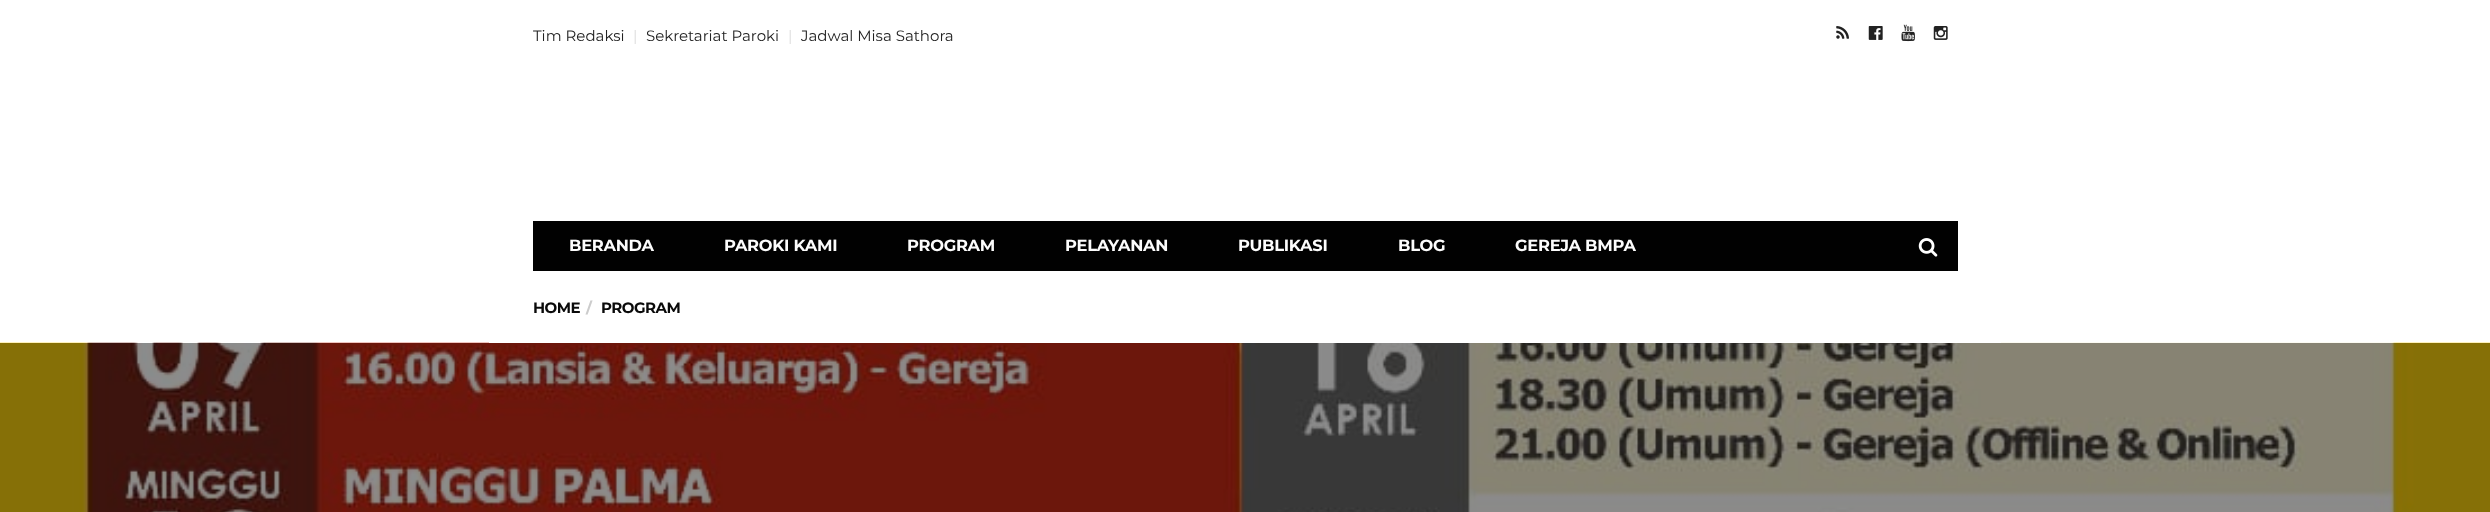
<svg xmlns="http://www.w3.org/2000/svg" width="2490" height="512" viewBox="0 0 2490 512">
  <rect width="100%" height="100%" fill="#fff"/>
  <image x="1836" y="26" width="13" height="13" href="img/1.png"/>
  <image x="1868" y="26" width="15" height="14" href="img/2.png"/>
  <image x="1901" y="24" width="14" height="18" href="img/3.png"/>
  <image x="1933" y="26" width="15" height="14" href="img/4.png"/>
  <path d="M533 221h1425v50H533z" fill="#010101"/>
  <image x="1918" y="238" width="20" height="19" href="img/5.png"/>
  <path d="M0 343h2490v169H0z" fill="#010101"/>
  <image x="0" y="342" width="2490" height="170" href="img/6.png"/>
  <path d="M489 342h1512v1H489z" fill="#fff"/>
  <text x="533" y="41" font-family="Montserrat" font-size="15" fill="#222">Tim Redaksi</text>
  <text x="633" y="41" font-family="Montserrat" font-size="15" fill="#ddd">|</text>
  <text x="646" y="41" font-family="Montserrat" font-size="15" fill="#222">Sekretariat Paroki</text>
  <text x="788" y="41" font-family="Montserrat" font-size="15" fill="#ddd">|</text>
  <text x="801" y="41" font-family="Montserrat" font-size="15" fill="#222">Jadwal Misa Sathora</text>
  <g font-family="Montserrat" font-size="16.25" font-weight="bold" letter-spacing="-0.25" fill="#fcfcfc">
    <text x="569" y="251">BERANDA</text>
    <text x="724" y="251">PAROKI KAMI</text>
    <text x="907" y="251">PROGRAM</text>
    <text x="1065" y="251">PELAYANAN</text>
    <text x="1238" y="251">PUBLIKASI</text>
    <text x="1398" y="251">BLOG</text>
    <text x="1515" y="251">GEREJA BMPA</text>
  </g>
  <text x="533" y="313" font-family="Montserrat" font-size="15" font-weight="bold" letter-spacing="-0.5" fill="#0a0a0a">HOME</text>
  <text x="586" y="313" font-family="Montserrat" font-size="15" font-weight="bold" letter-spacing="-0.5" fill="#ccc">/</text>
  <text x="601" y="313" font-family="Montserrat" font-size="15" font-weight="bold" letter-spacing="-0.5" fill="#0a0a0a">PROGRAM</text>
</svg>
